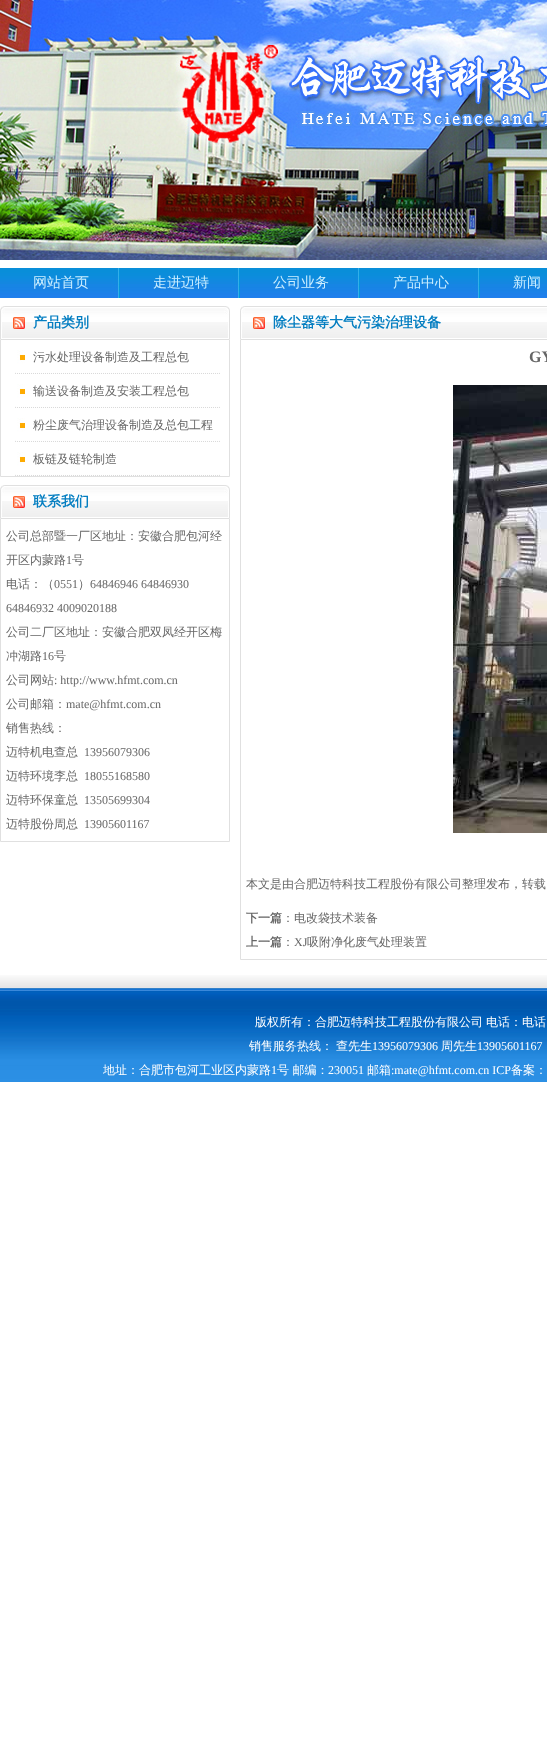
<svg xmlns="http://www.w3.org/2000/svg" width="547" height="1760" viewBox="0 0 547 1760">
  <rect width="100%" height="100%" fill="#fff"/>
  <image x="0" y="0" width="547" height="260" href="img/1.png"/>
  <image x="0" y="268" width="120" height="30" href="img/2.png"/>
  <image x="120" y="268" width="120" height="30" href="img/2.png"/>
  <image x="240" y="268" width="120" height="30" href="img/2.png"/>
  <image x="360" y="268" width="120" height="30" href="img/2.png"/>
  <image x="480" y="268" width="67" height="30" href="img/3.png"/>
  <image x="0" y="306" width="5" height="33" href="img/4.png"/>
  <image x="5" y="306" width="219" height="32" href="img/5.png"/>
  <image x="13" y="317" width="12" height="12" href="img/6.png"/>
  <image x="224" y="306" width="6" height="33" href="img/7.png"/>
  <path d="M0.5 339.5h229v137H0.5z" fill="none" stroke="#e0e0e0"/>
  <image x="15" y="350" width="205" height="24" href="img/8.png"/>
  <image x="15" y="384" width="205" height="24" href="img/8.png"/>
  <image x="15" y="418" width="205" height="24" href="img/8.png"/>
  <image x="15" y="452" width="205" height="24" href="img/8.png"/>
  <image x="0" y="485" width="5" height="33" href="img/4.png"/>
  <image x="5" y="485" width="219" height="32" href="img/5.png"/>
  <image x="13" y="496" width="12" height="12" href="img/6.png"/>
  <image x="224" y="485" width="6" height="33" href="img/7.png"/>
  <path d="M0.5 518.5h229v323H0.5z" fill="none" stroke="#e0e0e0"/>
  <image x="240" y="306" width="5" height="33" href="img/4.png"/>
  <image x="245" y="306" width="302" height="32" href="img/9.png"/>
  <image x="253" y="317" width="12" height="12" href="img/6.png"/>
  <path d="M240.5 339.5h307v620H240.5z" fill="none" stroke="#e0e0e0"/>
  <image x="453" y="385" width="94" height="448" href="img/10.png"/>
  <image x="0" y="975" width="547" height="107" href="img/11.png"/>
  <g font-family="WenQuanYi Zen Hei" font-size="14" font-weight="500" fill="#cdefff">
    <text x="33" y="287">网站首页</text>
    <text x="153" y="287">走进迈特</text>
    <text x="273" y="287">公司业务</text>
    <text x="393" y="287">产品中心</text>
    <text x="513" y="287">新闻</text>
  </g>
  <text x="33" y="327" font-family="WenQuanYi Zen Hei" font-size="14" font-weight="bold" fill="#047ec1">产品类别</text>
  <g font-family="WenQuanYi Zen Hei" font-size="12" font-weight="500" fill="#666">
    <text x="33" y="361">污水处理设备制造及工程总包</text>
    <text x="33" y="395">输送设备制造及安装工程总包</text>
    <text x="33" y="429">粉尘废气治理设备制造及总包工程</text>
    <text x="33" y="463">板链及链轮制造</text>
  </g>
  <text x="33" y="506" font-family="WenQuanYi Zen Hei" font-size="14" font-weight="bold" fill="#047ec1">联系我们</text>
  <g font-family="WenQuanYi Zen Hei" font-size="12" font-weight="500" fill="#666">
    <text x="6" y="540">公司总部暨一厂区地址：安徽合肥包河经</text>
    <text x="6" y="564">开区内蒙路</text>
  </g>
  <text x="66" y="564" font-family="Liberation Serif" font-size="12" fill="#666">1</text>
  <g font-family="WenQuanYi Zen Hei" font-size="12" font-weight="500" fill="#666">
    <text x="72" y="564">号</text>
    <text x="6" y="588">电话：（</text>
  </g>
  <text x="54" y="588" font-family="Liberation Serif" font-size="12" fill="#666">0551</text>
  <text x="78" y="588" font-family="WenQuanYi Zen Hei" font-size="12" font-weight="500" fill="#666">）</text>
  <g font-family="Liberation Serif" font-size="12" fill="#666">
    <text x="90" y="588">64846946 64846930</text>
    <text x="6" y="612">64846932 4009020188</text>
  </g>
  <g font-family="WenQuanYi Zen Hei" font-size="12" font-weight="500" fill="#666">
    <text x="6" y="636">公司二厂区地址：安徽合肥双凤经开区梅</text>
    <text x="6" y="660">冲湖路</text>
  </g>
  <text x="42" y="660" font-family="Liberation Serif" font-size="12" fill="#666">16</text>
  <g font-family="WenQuanYi Zen Hei" font-size="12" font-weight="500" fill="#666">
    <text x="54" y="660">号</text>
    <text x="6" y="684">公司网站</text>
  </g>
  <text x="54" y="684" font-family="Liberation Serif" font-size="12" fill="#666">: http://www.hfmt.com.cn</text>
  <text x="6" y="708" font-family="WenQuanYi Zen Hei" font-size="12" font-weight="500" fill="#666">公司邮箱：</text>
  <text x="66" y="708" font-family="Liberation Serif" font-size="12" fill="#666">mate@hfmt.com.cn</text>
  <g font-family="WenQuanYi Zen Hei" font-size="12" font-weight="500" fill="#666">
    <text x="6" y="732">销售热线：</text>
    <text x="6" y="756">迈特机电查总</text>
  </g>
  <text x="84" y="756" font-family="Liberation Serif" font-size="12" fill="#666">13956079306</text>
  <text x="6" y="780" font-family="WenQuanYi Zen Hei" font-size="12" font-weight="500" fill="#666">迈特环境李总</text>
  <text x="84" y="780" font-family="Liberation Serif" font-size="12" fill="#666">18055168580</text>
  <text x="6" y="804" font-family="WenQuanYi Zen Hei" font-size="12" font-weight="500" fill="#666">迈特环保童总</text>
  <text x="84" y="804" font-family="Liberation Serif" font-size="12" fill="#666">13505699304</text>
  <text x="6" y="828" font-family="WenQuanYi Zen Hei" font-size="12" font-weight="500" fill="#666">迈特股份周总</text>
  <text x="84" y="828" font-family="Liberation Serif" font-size="12" fill="#666">13905601167</text>
  <text x="273" y="327" font-family="WenQuanYi Zen Hei" font-size="14" font-weight="bold" fill="#047ec1">除尘器等大气污染治理设备</text>
  <text x="529" y="362" font-family="Liberation Serif" font-size="16" font-weight="bold" fill="#666">GY</text>
  <text x="246" y="888" font-family="WenQuanYi Zen Hei" font-size="12" font-weight="500" fill="#666">本文是由合肥迈特科技工程股份有限公司整理发布，转载</text>
  <text x="246" y="922" font-family="WenQuanYi Zen Hei" font-size="12" font-weight="bold" fill="#666">下一篇</text>
  <text x="282" y="922" font-family="WenQuanYi Zen Hei" font-size="12" font-weight="500" fill="#666">：电改袋技术装备</text>
  <text x="246" y="946" font-family="WenQuanYi Zen Hei" font-size="12" font-weight="bold" fill="#666">上一篇</text>
  <text x="282" y="946" font-family="WenQuanYi Zen Hei" font-size="12" font-weight="500" fill="#666">：</text>
  <text x="294" y="946" font-family="Liberation Serif" font-size="12" fill="#666">XJ</text>
  <text x="307" y="946" font-family="WenQuanYi Zen Hei" font-size="12" font-weight="500" fill="#666">吸附净化废气处理装置</text>
  <g font-family="WenQuanYi Zen Hei" font-size="12" font-weight="500" fill="#fff">
    <text x="255" y="1026">版权所有：合肥迈特科技工程股份有限公司</text>
    <text x="486" y="1026">电话：电话</text>
    <text x="249" y="1050">销售服务热线：</text>
    <text x="336" y="1050">查先生</text>
  </g>
  <text x="372" y="1050" font-family="Liberation Serif" font-size="12" fill="#fff">13956079306</text>
  <text x="441" y="1050" font-family="WenQuanYi Zen Hei" font-size="12" font-weight="500" fill="#fff">周先生</text>
  <text x="477" y="1050" font-family="Liberation Serif" font-size="12" fill="#fff">13905601167</text>
  <text x="103" y="1074" font-family="WenQuanYi Zen Hei" font-size="12" font-weight="500" fill="#fff">地址：合肥市包河工业区内蒙路</text>
  <text x="271" y="1074" font-family="Liberation Serif" font-size="12" fill="#fff">1</text>
  <text x="277" y="1074" font-family="WenQuanYi Zen Hei" font-size="12" font-weight="500" fill="#fff">号 邮编：</text>
  <text x="328" y="1074" font-family="Liberation Serif" font-size="12" fill="#fff">230051</text>
  <text x="367" y="1074" font-family="WenQuanYi Zen Hei" font-size="12" font-weight="500" fill="#fff">邮箱</text>
  <text x="391" y="1074" font-family="Liberation Serif" font-size="12" fill="#fff">:mate@hfmt.com.cn ICP</text>
  <text x="511" y="1074" font-family="WenQuanYi Zen Hei" font-size="12" font-weight="500" fill="#fff">备案：</text>
</svg>
